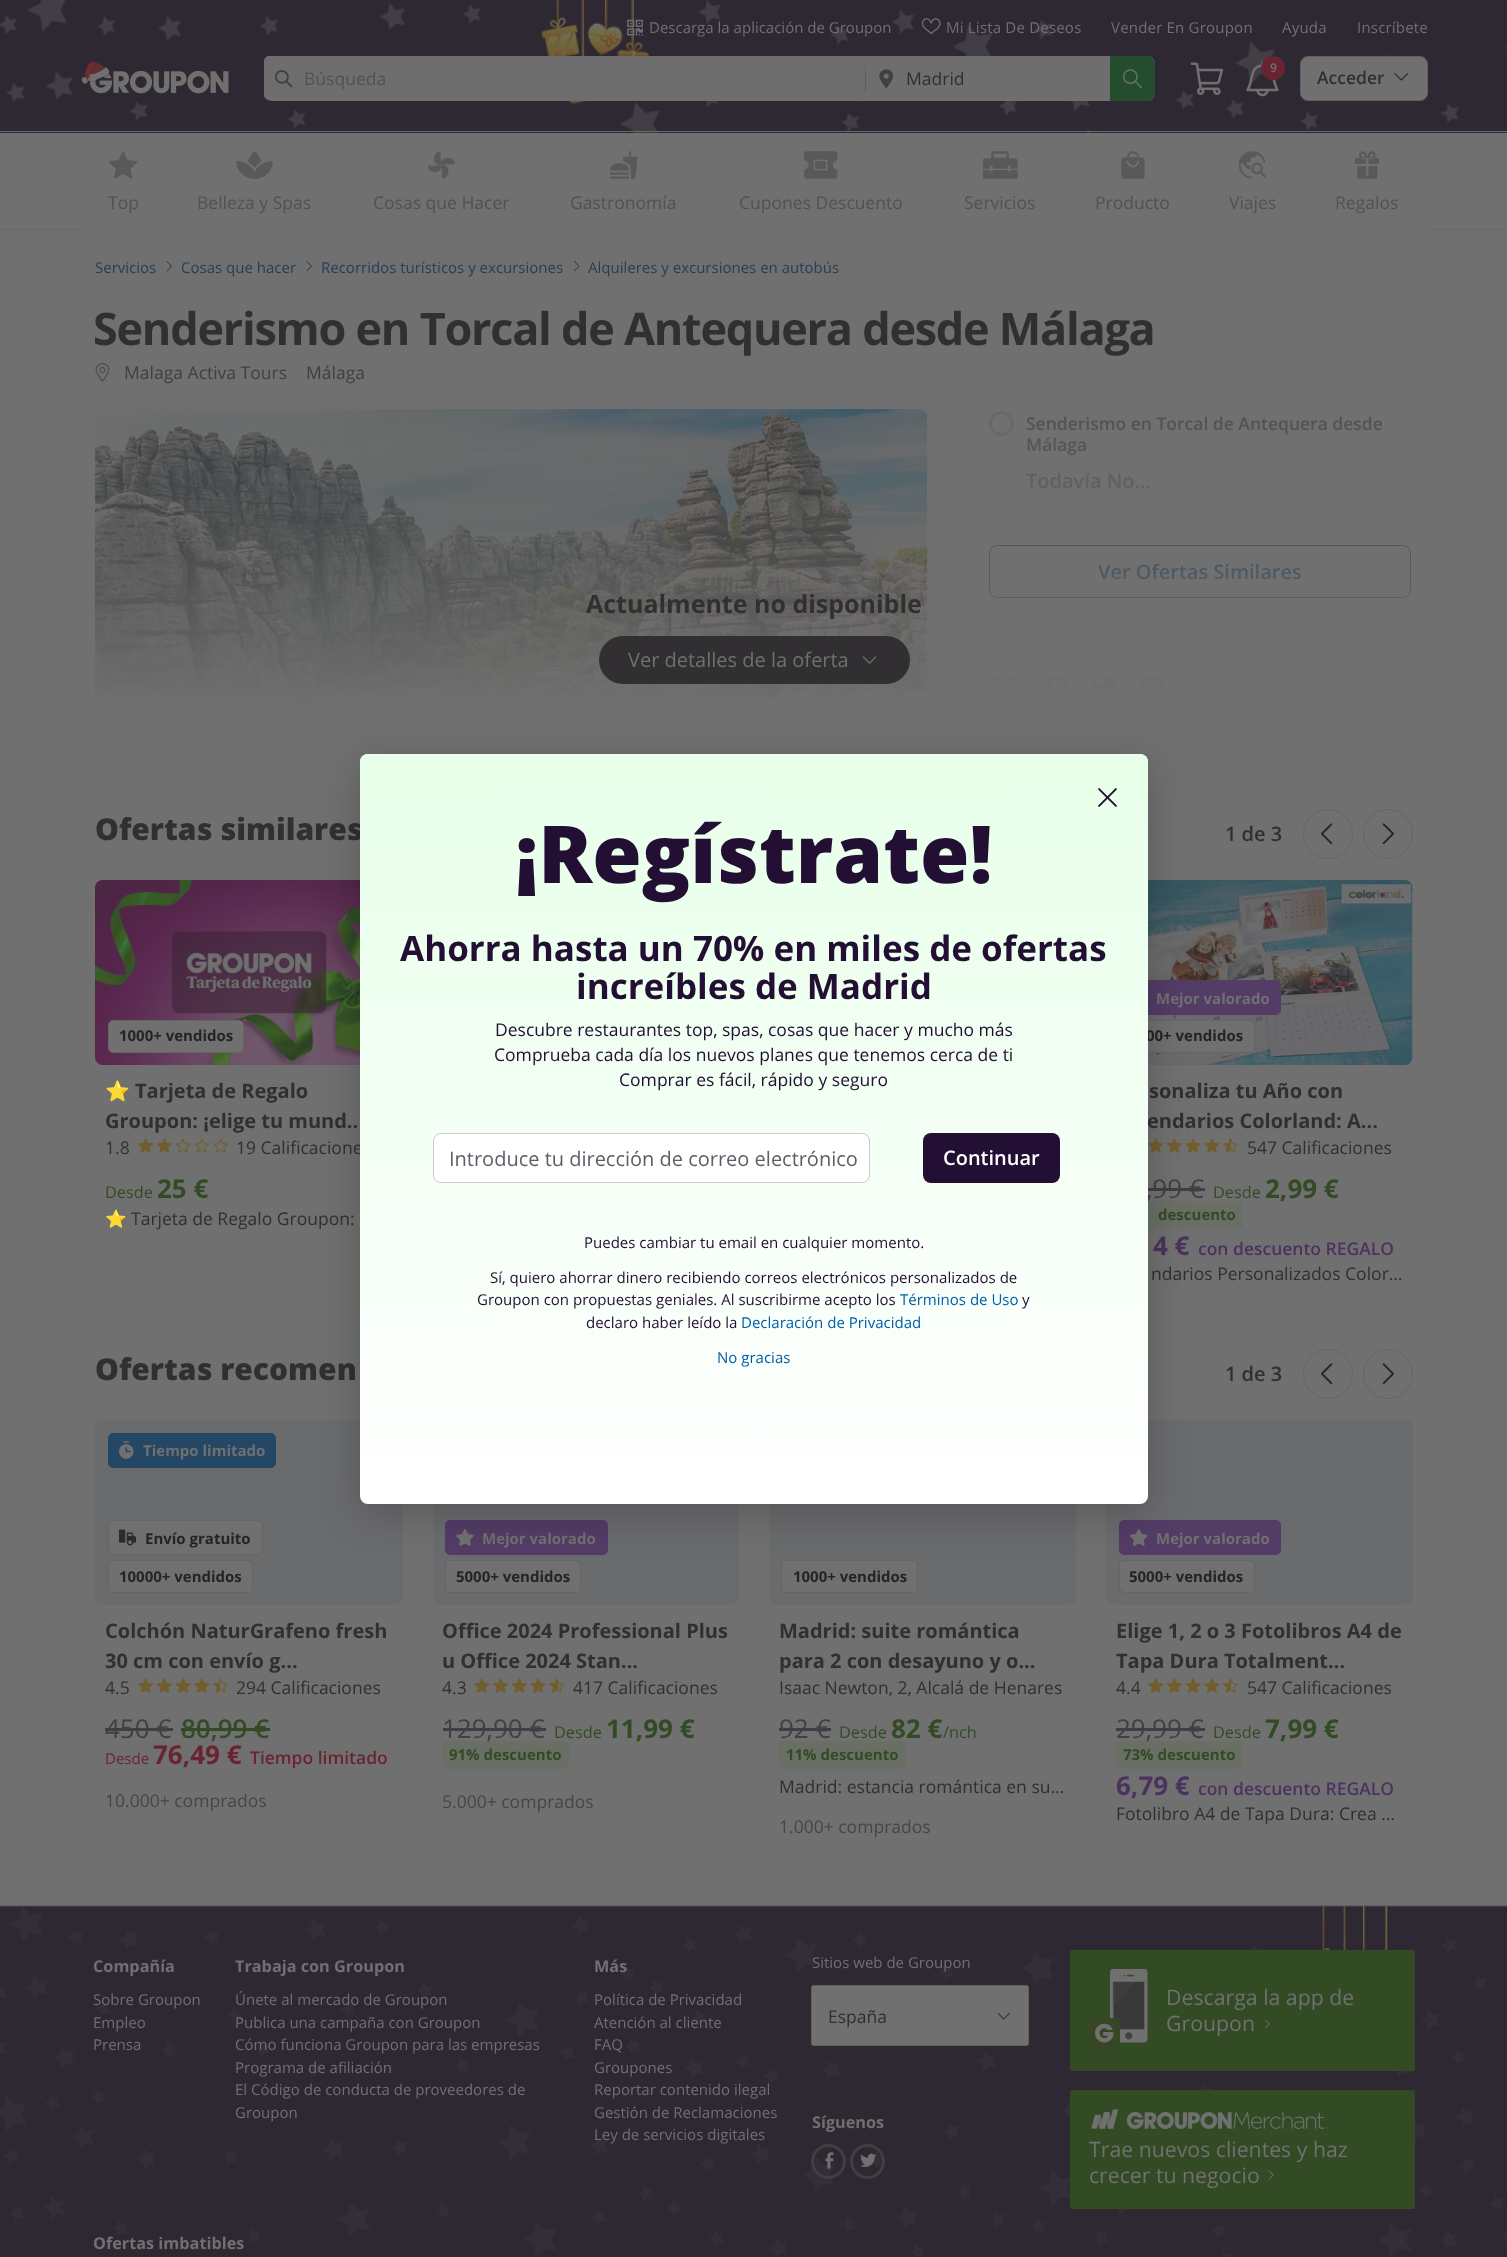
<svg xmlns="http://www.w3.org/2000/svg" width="1507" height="2257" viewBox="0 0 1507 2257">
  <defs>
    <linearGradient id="g1" gradientUnits="userSpaceOnUse" x1="754" y1="409" x2="754" y2="784"><stop offset="0" stop-color="#707070" stop-opacity="0"/><stop offset="0.8" stop-color="#707070"/></linearGradient>
    <linearGradient id="g2" gradientUnits="userSpaceOnUse" x1="754" y1="754" x2="754" y2="1504"><stop offset="0" stop-color="#e7ffe9"/><stop offset="1" stop-color="#e7ffe9" stop-opacity="0"/><stop offset="1" stop-color="#fff" stop-opacity="0"/><stop offset="1" stop-color="#fff"/></linearGradient>
  </defs>
  <rect width="100%" height="100%" fill="#707070"/>
  <image x="0" y="0" width="1507" height="133" href="img/1.png"/>
  <image x="627" y="19" width="16" height="17" href="img/2.png"/>
  <image x="921" y="18" width="20" height="17" href="img/3.png"/>
  <image x="81" y="61" width="148" height="33" href="img/4.png"/>
  <rect x="264" y="56" width="891" height="45" rx="8" fill="#6e6e6f"/>
  <rect x="264" y="56" width="601" height="44" rx="5" fill="#6e6e6f"/>
  <image x="275" y="70" width="18" height="18" href="img/5.png"/>
  <path d="M865 66h1v27H865z" fill="#606061"/>
  <image x="879" y="69" width="15" height="20" href="img/6.png"/>
  <path d="M1110.5 56.5H1147C1151 56.5 1154.5 60 1154.5 64V93C1154.5 97 1151 100.5 1147 100.5H1110.5Z" fill="#244d2e" stroke="#244d2e"/>
  <image x="1123" y="69" width="19" height="20" href="img/7.png"/>
  <image x="1190" y="62" width="34" height="33" href="img/8.png"/>
  <image x="1246" y="61" width="33" height="36" href="img/9.png"/>
  <circle cx="1273" cy="68" r="12" fill="#6a2430"/>
  <rect x="1300.5" y="56.5" width="127" height="44" rx="7.5" fill="#707070" stroke="#606061"/>
  <image x="1394" y="73" width="15" height="8" href="img/10.png"/>
  <path d="M0 131h1507v1H0z" fill="#686869"/>
  <path d="M0 229h1507v1H0z" fill="#686869"/>
  <path d="M80 229h1348v1H80z" fill="#707070"/>
  <image x="109" y="151" width="29" height="28" href="img/11.png"/>
  <image x="236" y="151" width="37" height="28" href="img/12.png"/>
  <image x="428" y="151" width="27" height="28" href="img/13.png"/>
  <image x="610" y="151" width="28" height="28" href="img/14.png"/>
  <image x="804" y="151" width="34" height="28" href="img/15.png"/>
  <image x="983" y="151" width="35" height="28" href="img/16.png"/>
  <image x="1121" y="151" width="24" height="28" href="img/17.png"/>
  <image x="1239" y="151" width="27" height="28" href="img/18.png"/>
  <image x="1355" y="151" width="24" height="28" href="img/19.png"/>
  <image x="166" y="261" width="6" height="11" href="img/20.png"/>
  <image x="306" y="261" width="6" height="11" href="img/20.png"/>
  <image x="574" y="261" width="6" height="11" href="img/21.png"/>
  <image x="95" y="363" width="15" height="19" href="img/22.png"/>
  <image x="95" y="409" width="833" height="298" href="img/23.png"/>
  <path d="M989 514h422v1H989z" fill="#696969"/>
  <circle cx="1001.5" cy="423.5" r="11" fill="none" stroke="#686869" stroke-width="3"/>
  <rect x="989.5" y="545.5" width="421" height="52" rx="7.5" fill="none" stroke="#244765"/>
  <image x="990" y="677" width="27" height="23" href="img/24.png"/>
  <image x="1040" y="675" width="27" height="27" href="img/25.png"/>
  <image x="1090" y="677" width="28" height="24" href="img/26.png"/>
  <image x="1140" y="675" width="26" height="26" href="img/27.png"/>
  <circle cx="1328" cy="834" r="24.5" fill="none" stroke="#646565"/>
  <image x="1321" y="823" width="12" height="22" href="img/29.png"/>
  <circle cx="1388" cy="834" r="24.5" fill="none" stroke="#646565"/>
  <image x="1382" y="823" width="12" height="22" href="img/30.png"/>
  <image x="95" y="880" width="265" height="185" href="img/31.png"/>
  <rect x="108.5" y="1020.5" width="135" height="32" rx="4.5" fill="#707070" stroke="#656566"/>
  <image x="138" y="1138" width="15" height="15" href="img/32.png"/>
  <image x="138" y="1138" width="15" height="15" href="img/33.png"/>
  <image x="157" y="1138" width="15" height="15" href="img/34.png"/>
  <image x="157" y="1138" width="15" height="15" href="img/35.png"/>
  <image x="175" y="1138" width="16" height="15" href="img/36.png"/>
  <image x="194" y="1138" width="16" height="15" href="img/37.png"/>
  <image x="213" y="1138" width="15" height="15" href="img/32.png"/>
  <image x="1148" y="880" width="265" height="185" href="img/38.png"/>
  <rect x="1119.5" y="980.5" width="161" height="34" rx="4.5" fill="#533c66" stroke="#533c66"/>
  <rect x="1119.5" y="1020.5" width="135" height="32" rx="4.5" fill="#707070" stroke="#656566"/>
  <image x="1148" y="1138" width="15" height="15" href="img/32.png"/>
  <image x="1148" y="1138" width="15" height="15" href="img/33.png"/>
  <image x="1167" y="1138" width="15" height="15" href="img/34.png"/>
  <image x="1167" y="1138" width="15" height="15" href="img/35.png"/>
  <image x="1185" y="1138" width="16" height="15" href="img/36.png"/>
  <image x="1185" y="1138" width="16" height="15" href="img/39.png"/>
  <image x="1204" y="1138" width="16" height="15" href="img/37.png"/>
  <image x="1204" y="1138" width="16" height="15" href="img/40.png"/>
  <image x="1223" y="1138" width="15" height="15" href="img/32.png"/>
  <image x="1223" y="1138" width="8" height="15" href="img/41.png"/>
  <path d="M1148 1188h57v3H1148z" fill="#413f42"/>
  <rect x="1116" y="1201" width="127" height="28" rx="5" fill="#6a6f66"/>
  <circle cx="1328" cy="1374" r="24.5" fill="none" stroke="#646565"/>
  <image x="1321" y="1363" width="12" height="22" href="img/29.png"/>
  <circle cx="1388" cy="1374" r="24.5" fill="none" stroke="#646565"/>
  <image x="1382" y="1363" width="12" height="22" href="img/30.png"/>
  <rect x="95" y="1420" width="308" height="185" rx="8" fill="#6a6b6d"/>
  <rect x="108.5" y="1433.5" width="167" height="34" rx="4.5" fill="#244765" stroke="#244765"/>
  <image x="119" y="1441" width="15" height="18" href="img/42.png"/>
  <rect x="108.5" y="1520.5" width="154" height="34" rx="4.5" fill="#707070" stroke="#656566"/>
  <image x="119" y="1529" width="17" height="17" href="img/43.png"/>
  <rect x="108.5" y="1560.5" width="144" height="32" rx="4.5" fill="#707070" stroke="#656566"/>
  <image x="138" y="1678" width="15" height="15" href="img/32.png"/>
  <image x="138" y="1678" width="15" height="15" href="img/33.png"/>
  <image x="157" y="1678" width="15" height="15" href="img/34.png"/>
  <image x="157" y="1678" width="15" height="15" href="img/35.png"/>
  <image x="175" y="1678" width="16" height="15" href="img/36.png"/>
  <image x="175" y="1678" width="16" height="15" href="img/39.png"/>
  <image x="194" y="1678" width="16" height="15" href="img/37.png"/>
  <image x="194" y="1678" width="16" height="15" href="img/40.png"/>
  <image x="213" y="1678" width="15" height="15" href="img/32.png"/>
  <image x="213" y="1679" width="7" height="14" href="img/44.png"/>
  <path d="M105 1728h68v3H105z" fill="#413f42"/>
  <path d="M181 1728h89v3H181z" fill="#324b24"/>
  <rect x="433" y="1420" width="306" height="185" rx="8" fill="#6a6b6d"/>
  <rect x="445.5" y="1520.5" width="162" height="34" rx="4.5" fill="#533c66" stroke="#533c66"/>
  <image x="456" y="1529" width="18" height="17" href="img/45.png"/>
  <rect x="445.5" y="1560.5" width="135" height="32" rx="4.5" fill="#707070" stroke="#656566"/>
  <image x="474" y="1678" width="16" height="15" href="img/37.png"/>
  <image x="474" y="1678" width="16" height="15" href="img/40.png"/>
  <image x="493" y="1678" width="15" height="15" href="img/32.png"/>
  <image x="493" y="1678" width="15" height="15" href="img/33.png"/>
  <image x="512" y="1678" width="15" height="15" href="img/34.png"/>
  <image x="512" y="1678" width="15" height="15" href="img/35.png"/>
  <image x="530" y="1678" width="16" height="15" href="img/36.png"/>
  <image x="530" y="1678" width="16" height="15" href="img/39.png"/>
  <image x="549" y="1678" width="16" height="15" href="img/37.png"/>
  <image x="549" y="1678" width="9" height="15" href="img/46.png"/>
  <path d="M443 1728h103v3H443z" fill="#413f42"/>
  <rect x="443" y="1741" width="126" height="28" rx="5" fill="#6a6f66"/>
  <rect x="769" y="1420" width="307" height="185" rx="8" fill="#6a6b6d"/>
  <rect x="781.5" y="1560.5" width="136" height="32" rx="4.5" fill="#707070" stroke="#656566"/>
  <path d="M779 1728h52v3H779z" fill="#413f42"/>
  <rect x="779" y="1741" width="127" height="28" rx="5" fill="#6a6f66"/>
  <rect x="1106" y="1420" width="307" height="185" rx="8" fill="#6a6b6d"/>
  <rect x="1119.5" y="1520.5" width="161" height="34" rx="4.5" fill="#533c66" stroke="#533c66"/>
  <image x="1130" y="1529" width="18" height="17" href="img/47.png"/>
  <rect x="1119.5" y="1560.5" width="135" height="32" rx="4.5" fill="#707070" stroke="#656566"/>
  <image x="1148" y="1678" width="15" height="15" href="img/32.png"/>
  <image x="1148" y="1678" width="15" height="15" href="img/33.png"/>
  <image x="1167" y="1678" width="15" height="15" href="img/34.png"/>
  <image x="1167" y="1678" width="15" height="15" href="img/35.png"/>
  <image x="1185" y="1678" width="16" height="15" href="img/36.png"/>
  <image x="1185" y="1678" width="16" height="15" href="img/39.png"/>
  <image x="1204" y="1678" width="16" height="15" href="img/37.png"/>
  <image x="1204" y="1678" width="16" height="15" href="img/40.png"/>
  <image x="1223" y="1678" width="15" height="15" href="img/32.png"/>
  <image x="1223" y="1678" width="8" height="15" href="img/41.png"/>
  <path d="M1116 1728h89v3H1116z" fill="#413f42"/>
  <rect x="1116" y="1741" width="127" height="28" rx="5" fill="#6a6f66"/>
  <image x="0" y="1906" width="1507" height="351" href="img/49.png"/>
  <path d="M0 1905h1507v1H0z" fill="#606061"/>
  <rect x="811.5" y="1985.5" width="217" height="60" rx="2" fill="#707070" stroke="#606061"/>
  <image x="997" y="2013" width="13" height="7" href="img/50.png"/>
  <circle cx="828.5" cy="2161.5" r="16" fill="none" stroke="#413f42" stroke-width="3"/>
  <image x="825" y="2152" width="9" height="17" href="img/51.png"/>
  <circle cx="867.5" cy="2161.5" r="16" fill="none" stroke="#413f42" stroke-width="3"/>
  <image x="860" y="2153" width="17" height="14" href="img/52.png"/>
  <rect x="1070" y="1950" width="345" height="121" rx="2.5" fill="#324b24"/>
  <image x="1089" y="1969" width="59" height="80" href="img/53.png"/>
  <image x="1265" y="2019" width="5" height="9" href="img/54.png"/>
  <rect x="1070" y="2090" width="345" height="119" rx="2.5" fill="#324b24"/>
  <image x="1091" y="2109" width="238" height="20" href="img/55.png"/>
  <image x="1269" y="2170" width="5" height="10" href="img/56.png"/>
  <text x="649" y="33" font-family="Open Sans" font-size="15" fill="#707070">Descarga la aplicación de Groupon</text>
  <g font-family="Open Sans" font-size="15" letter-spacing="0.2" fill="#707070">
    <text x="946" y="33">Mi Lista De Deseos</text>
    <text x="1111" y="33">Vender En Groupon</text>
    <text x="1282" y="33">Ayuda</text>
    <text x="1357" y="33">Inscríbete</text>
  </g>
  <text x="304" y="85" font-family="Open Sans" font-size="17.5" fill="#525252">Búsqueda</text>
  <text x="906" y="85" font-family="Open Sans" font-size="17.5" fill="#312f32">Madrid</text>
  <text x="1270" y="72" font-family="Open Sans" font-size="12" font-weight="600" fill="#707070">9</text>
  <text x="1317" y="84" font-family="Open Sans" font-size="17.5" font-weight="600" fill="#312f32">Acceder</text>
  <g font-family="Open Sans" font-size="17.5" fill="#525252">
    <text x="108" y="209">Top</text>
    <text x="197" y="209">Belleza y Spas</text>
    <text x="373" y="209">Cosas que Hacer</text>
    <text x="570" y="209">Gastronomía</text>
    <text x="739" y="209">Cupones Descuento</text>
    <text x="964" y="209">Servicios</text>
    <text x="1095" y="209">Producto</text>
    <text x="1229" y="209">Viajes</text>
    <text x="1335" y="209">Regalos</text>
  </g>
  <g font-family="Open Sans" font-size="15" fill="#244057">
    <text x="95" y="273">Servicios</text>
    <text x="181" y="273">Cosas que hacer</text>
    <text x="321" y="273">Recorridos turísticos y excursiones</text>
    <text x="588" y="273">Alquileres y excursiones en autobús</text>
  </g>
  <text x="93" y="345" font-family="Open Sans" font-size="45" font-weight="bold" letter-spacing="-1.25" fill="#312f32">Senderismo en Torcal de Antequera desde Málaga</text>
  <g font-family="Open Sans" font-size="17.5" fill="#413f42">
    <text x="124" y="379">Malaga Activa Tours</text>
    <text x="306" y="379">Málaga</text>
  </g>
  <g font-family="Open Sans" font-size="17.5" font-weight="600" fill="#525252">
    <text x="1026" y="430">Senderismo en Torcal de Antequera desde</text>
    <text x="1026" y="451">Málaga</text>
  </g>
  <text x="1026" y="488" font-family="Open Sans" font-size="20" font-weight="600" fill="#5b5b5c">Todavía No...</text>
  <text x="1098" y="579" font-family="Open Sans" font-size="20" font-weight="600" fill="#244057">Ver Ofertas Similares</text>
  <path d="M95 424h1316v283H95z" fill="url(#g1)"/>
  <text x="586" y="613" font-family="Open Sans" font-size="25" font-weight="bold" fill="#312f32">Actualmente no disponible</text>
  <rect x="599" y="636" width="311" height="48" rx="24" fill="#312f32"/>
  <text x="628" y="667" font-family="Open Sans" font-size="20" fill="#707070">Ver detalles de la oferta</text>
  <image x="862" y="656" width="15" height="8" href="img/28.png"/>
  <text x="95" y="840" font-family="Open Sans" font-size="30" font-weight="800" fill="#312f32">Ofertas similares</text>
  <text x="1225" y="841" font-family="Open Sans" font-size="20" font-weight="600" fill="#312f32">1 de 3</text>
  <text x="119" y="1041" font-family="Open Sans" font-size="15" font-weight="bold" fill="#242424">1000+ vendidos</text>
  <text x="105" y="1098" font-family="Noto Color Emoji" font-size="20" font-weight="bold" fill="#312f32">⭐️</text>
  <g font-family="Open Sans" font-size="20" font-weight="bold" fill="#312f32">
    <text x="135" y="1098">Tarjeta de Regalo</text>
    <text x="105" y="1128">Groupon: ¡elige tu mund..</text>
  </g>
  <g font-family="Open Sans" font-size="17.5" fill="#312f32">
    <text x="105" y="1154">1.8</text>
    <text x="236" y="1154">19 Calificacione</text>
  </g>
  <text x="105" y="1198" font-family="Open Sans" font-size="16.25" fill="#324b24">Desde</text>
  <text x="157" y="1198" font-family="Open Sans" font-size="26" font-weight="bold" fill="#324b24">25 €</text>
  <text x="105" y="1225" font-family="Noto Color Emoji" font-size="17.5" fill="#312f32">⭐️</text>
  <text x="131" y="1225" font-family="Open Sans" font-size="17.5" fill="#312f32">Tarjeta de Regalo Groupon:</text>
  <text x="1156" y="1004" font-family="Open Sans" font-size="15" font-weight="bold" fill="#707070">Mejor valorado</text>
  <text x="1146" y="1041" font-family="Open Sans" font-size="15" font-weight="bold" fill="#242424">00+ vendidos</text>
  <g font-family="Open Sans" font-size="20" font-weight="bold" fill="#312f32">
    <text x="1149" y="1098">sonaliza tu Año con</text>
    <text x="1147" y="1128">endarios Colorland: A...</text>
  </g>
  <text x="1247" y="1154" font-family="Open Sans" font-size="17.5" fill="#312f32">547 Calificaciones</text>
  <text x="1146" y="1198" font-family="Open Sans" font-size="26" fill="#413f42">,99 €</text>
  <text x="1213" y="1198" font-family="Open Sans" font-size="16.25" fill="#324b24">Desde</text>
  <text x="1265" y="1198" font-family="Open Sans" font-size="26" font-weight="bold" fill="#324b24">2,99 €</text>
  <text x="1158" y="1220" font-family="Open Sans" font-size="15" font-weight="bold" fill="#324b24">descuento</text>
  <text x="1153" y="1255" font-family="Open Sans" font-size="26" font-weight="bold" fill="#4b325f">4 €</text>
  <text x="1198" y="1255" font-family="Open Sans" font-size="17.5" font-weight="600" fill="#4b325f">con descuento REGALO</text>
  <text x="1151" y="1280" font-family="Open Sans" font-size="17.5" fill="#312f32">ndarios Personalizados Color…</text>
  <text x="95" y="1380" font-family="Open Sans" font-size="30" font-weight="800" fill="#312f32">Ofertas recomen</text>
  <text x="1225" y="1381" font-family="Open Sans" font-size="20" font-weight="600" fill="#312f32">1 de 3</text>
  <text x="143" y="1456" font-family="Open Sans" font-size="15" font-weight="bold" fill="#707070">Tiempo limitado</text>
  <g font-family="Open Sans" font-size="15" font-weight="bold" fill="#242424">
    <text x="145" y="1544">Envío gratuito</text>
    <text x="119" y="1582">10000+ vendidos</text>
  </g>
  <g font-family="Open Sans" font-size="20" font-weight="bold" fill="#312f32">
    <text x="105" y="1638">Colchón NaturGrafeno fresh</text>
    <text x="105" y="1668">30 cm con envío g...</text>
  </g>
  <g font-family="Open Sans" font-size="17.5" fill="#312f32">
    <text x="105" y="1694">4.5</text>
    <text x="236" y="1694">294 Calificaciones</text>
  </g>
  <text x="105" y="1738" font-family="Open Sans" font-size="26" fill="#413f42">450 €</text>
  <text x="181" y="1738" font-family="Open Sans" font-size="26" font-weight="600" fill="#324b24">80,99 €</text>
  <text x="105" y="1764" font-family="Open Sans" font-size="15" fill="#6a2430">Desde</text>
  <text x="153" y="1764" font-family="Open Sans" font-size="26" font-weight="bold" fill="#6a2430">76,49 €</text>
  <text x="250" y="1764" font-family="Open Sans" font-size="17.5" font-weight="600" fill="#6a2430">Tiempo limitado</text>
  <text x="105" y="1807" font-family="Open Sans" font-size="17.5" fill="#454647">10.000+ comprados</text>
  <text x="482" y="1544" font-family="Open Sans" font-size="15" font-weight="bold" fill="#707070">Mejor valorado</text>
  <text x="456" y="1582" font-family="Open Sans" font-size="15" font-weight="bold" fill="#242424">5000+ vendidos</text>
  <g font-family="Open Sans" font-size="20" font-weight="bold" fill="#312f32">
    <text x="442" y="1638">Office 2024 Professional Plus</text>
    <text x="442" y="1668">u Office 2024 Stan...</text>
  </g>
  <g font-family="Open Sans" font-size="17.5" fill="#312f32">
    <text x="442" y="1694">4.3</text>
    <text x="573" y="1694">417 Calificaciones</text>
  </g>
  <text x="442" y="1738" font-family="Open Sans" font-size="26" fill="#413f42">129,90 €</text>
  <text x="554" y="1738" font-family="Open Sans" font-size="16.25" fill="#324b24">Desde</text>
  <text x="606" y="1738" font-family="Open Sans" font-size="26" font-weight="bold" fill="#324b24">11,99 €</text>
  <text x="449" y="1760" font-family="Open Sans" font-size="15" font-weight="bold" fill="#324b24">91% descuento</text>
  <text x="442" y="1808" font-family="Open Sans" font-size="17.5" fill="#454647">5.000+ comprados</text>
  <text x="793" y="1582" font-family="Open Sans" font-size="15" font-weight="bold" fill="#242424">1000+ vendidos</text>
  <g font-family="Open Sans" font-size="20" font-weight="bold" fill="#312f32">
    <text x="779" y="1638">Madrid: suite romántica</text>
    <text x="779" y="1668">para 2 con desayuno y o...</text>
  </g>
  <text x="779" y="1694" font-family="Open Sans" font-size="17.5" fill="#312f32">Isaac Newton, 2, Alcalá de Henares</text>
  <text x="779" y="1738" font-family="Open Sans" font-size="26" fill="#413f42">92 €</text>
  <text x="839" y="1738" font-family="Open Sans" font-size="16.25" fill="#324b24">Desde</text>
  <text x="891" y="1738" font-family="Open Sans" font-size="26" font-weight="bold" fill="#324b24">82 €</text>
  <text x="943" y="1738" font-family="Open Sans" font-size="16.25" fill="#324b24">/nch</text>
  <text x="786" y="1760" font-family="Open Sans" font-size="15" font-weight="bold" fill="#324b24">11% descuento</text>
  <text x="779" y="1793" font-family="Open Sans" font-size="17.5" fill="#312f32">Madrid: estancia romántica en su…</text>
  <text x="779" y="1833" font-family="Open Sans" font-size="17.5" fill="#454647">1.000+ comprados</text>
  <text x="1156" y="1544" font-family="Open Sans" font-size="15" font-weight="bold" fill="#707070">Mejor valorado</text>
  <text x="1129" y="1582" font-family="Open Sans" font-size="15" font-weight="bold" fill="#242424">5000+ vendidos</text>
  <g font-family="Open Sans" font-size="20" font-weight="bold" fill="#312f32">
    <text x="1116" y="1638">Elige 1, 2 o 3 Fotolibros A4 de</text>
    <text x="1116" y="1668">Tapa Dura Totalment...</text>
  </g>
  <g font-family="Open Sans" font-size="17.5" fill="#312f32">
    <text x="1116" y="1694">4.4</text>
    <text x="1247" y="1694">547 Calificaciones</text>
  </g>
  <text x="1116" y="1738" font-family="Open Sans" font-size="26" fill="#413f42">29,99 €</text>
  <text x="1213" y="1738" font-family="Open Sans" font-size="16.25" fill="#324b24">Desde</text>
  <text x="1265" y="1738" font-family="Open Sans" font-size="26" font-weight="bold" fill="#324b24">7,99 €</text>
  <text x="1123" y="1760" font-family="Open Sans" font-size="15" font-weight="bold" fill="#324b24">73% descuento</text>
  <text x="1116" y="1795" font-family="Open Sans" font-size="26" font-weight="bold" fill="#4b325f">6,79 €</text>
  <text x="1198" y="1795" font-family="Open Sans" font-size="17.5" font-weight="600" fill="#4b325f">con descuento REGALO</text>
  <text x="1116" y="1820" font-family="Open Sans" font-size="17.5" fill="#312f32">Fotolibro A4 de Tapa Dura: Crea …</text>
  <rect x="360" y="764" width="788" height="750" rx="8" fill="#00000033" filter="blur(20px)"/>
  <rect x="360" y="754" width="788" height="750" rx="8" fill="#fff"/>
  <rect x="360" y="754" width="788" height="750" rx="8" fill="url(#g2)"/>
  <image x="1098" y="788" width="19" height="19" href="img/48.png"/>
  <text x="515" y="883" font-family="Open Sans" font-size="80" font-weight="800" fill="#230f33">¡Regístrate!</text>
  <g font-family="Open Sans" font-size="35" font-weight="bold" fill="#230f33">
    <text x="400" y="961">Ahorra hasta un 70% en miles de ofertas</text>
    <text x="576" y="999">increíbles de Madrid</text>
  </g>
  <g font-family="Open Sans" font-size="17.5" fill="#230f33">
    <text x="495" y="1036">Descubre restaurantes top, spas, cosas que hacer y mucho más</text>
    <text x="494" y="1061">Comprueba cada día los nuevos planes que tenemos cerca de ti</text>
    <text x="619" y="1086">Comprar es fácil, rápido y seguro</text>
  </g>
  <rect x="433.5" y="1133.5" width="436" height="49" rx="7.5" fill="#fff" stroke="#cacacc"/>
  <text x="449" y="1166" font-family="Open Sans" font-size="20" fill="#615c66">Introduce tu dirección de correo electrónico</text>
  <rect x="923" y="1133" width="137" height="50" rx="8" fill="#230f33"/>
  <text x="943" y="1165" font-family="Open Sans" font-size="20" font-weight="600" fill="#fff">Continuar</text>
  <g font-family="Open Sans" font-size="15" fill="#230f33">
    <text x="584" y="1248">Puedes cambiar tu email en cualquier momento.</text>
    <text x="490" y="1283">Sí, quiero ahorrar dinero recibiendo correos electrónicos personalizados de</text>
    <text x="477" y="1305">Groupon con propuestas geniales. Al suscribirme acepto los</text>
  </g>
  <text x="900" y="1305" font-family="Open Sans" font-size="15" fill="#005eab">Términos de Uso</text>
  <g font-family="Open Sans" font-size="15" fill="#230f33">
    <text x="1022" y="1305">y</text>
    <text x="586" y="1328">declaro haber leído la</text>
  </g>
  <g font-family="Open Sans" font-size="15" fill="#005eab">
    <text x="741" y="1328">Declaración de Privacidad</text>
    <text x="717" y="1363">No gracias</text>
  </g>
  <text x="93" y="1972" font-family="Open Sans" font-size="16.25" font-weight="bold" fill="#707070">Compañía</text>
  <g font-family="Open Sans" font-size="15" fill="#707070">
    <text x="93" y="2005">Sobre Groupon</text>
    <text x="93" y="2028">Empleo</text>
    <text x="93" y="2050">Prensa</text>
  </g>
  <text x="235" y="1972" font-family="Open Sans" font-size="16.25" font-weight="bold" fill="#707070">Trabaja con Groupon</text>
  <g font-family="Open Sans" font-size="15" fill="#707070">
    <text x="235" y="2005">Únete al mercado de Groupon</text>
    <text x="235" y="2028">Publica una campaña con Groupon</text>
    <text x="235" y="2050">Cómo funciona Groupon para las empresas</text>
    <text x="235" y="2073">Programa de afiliación</text>
    <text x="235" y="2095">El Código de conducta de proveedores de</text>
    <text x="235" y="2118">Groupon</text>
  </g>
  <text x="594" y="1972" font-family="Open Sans" font-size="16.25" font-weight="bold" fill="#707070">Más</text>
  <g font-family="Open Sans" font-size="15" fill="#707070">
    <text x="594" y="2005">Política de Privacidad</text>
    <text x="594" y="2028">Atención al cliente</text>
    <text x="594" y="2050">FAQ</text>
    <text x="594" y="2073">Groupones</text>
    <text x="594" y="2095">Reportar contenido ilegal</text>
    <text x="594" y="2118">Gestión de Reclamaciones</text>
    <text x="594" y="2140">Ley de servicios digitales</text>
    <text x="812" y="1968">Sitios web de Groupon</text>
  </g>
  <text x="828" y="2023" font-family="Open Sans" font-size="17.5" fill="#312f32">España</text>
  <text x="812" y="2128" font-family="Open Sans" font-size="16.25" font-weight="bold" fill="#707070">Síguenos</text>
  <g font-family="Open Sans" font-size="21.25" fill="#707070">
    <text x="1166" y="2005">Descarga la app de</text>
    <text x="1166" y="2031">Groupon</text>
    <text x="1089" y="2157">Trae nuevos clientes y haz</text>
    <text x="1089" y="2183">crecer tu negocio</text>
  </g>
  <text x="93" y="2249" font-family="Open Sans" font-size="16.25" font-weight="bold" fill="#707070">Ofertas imbatibles</text>
</svg>
